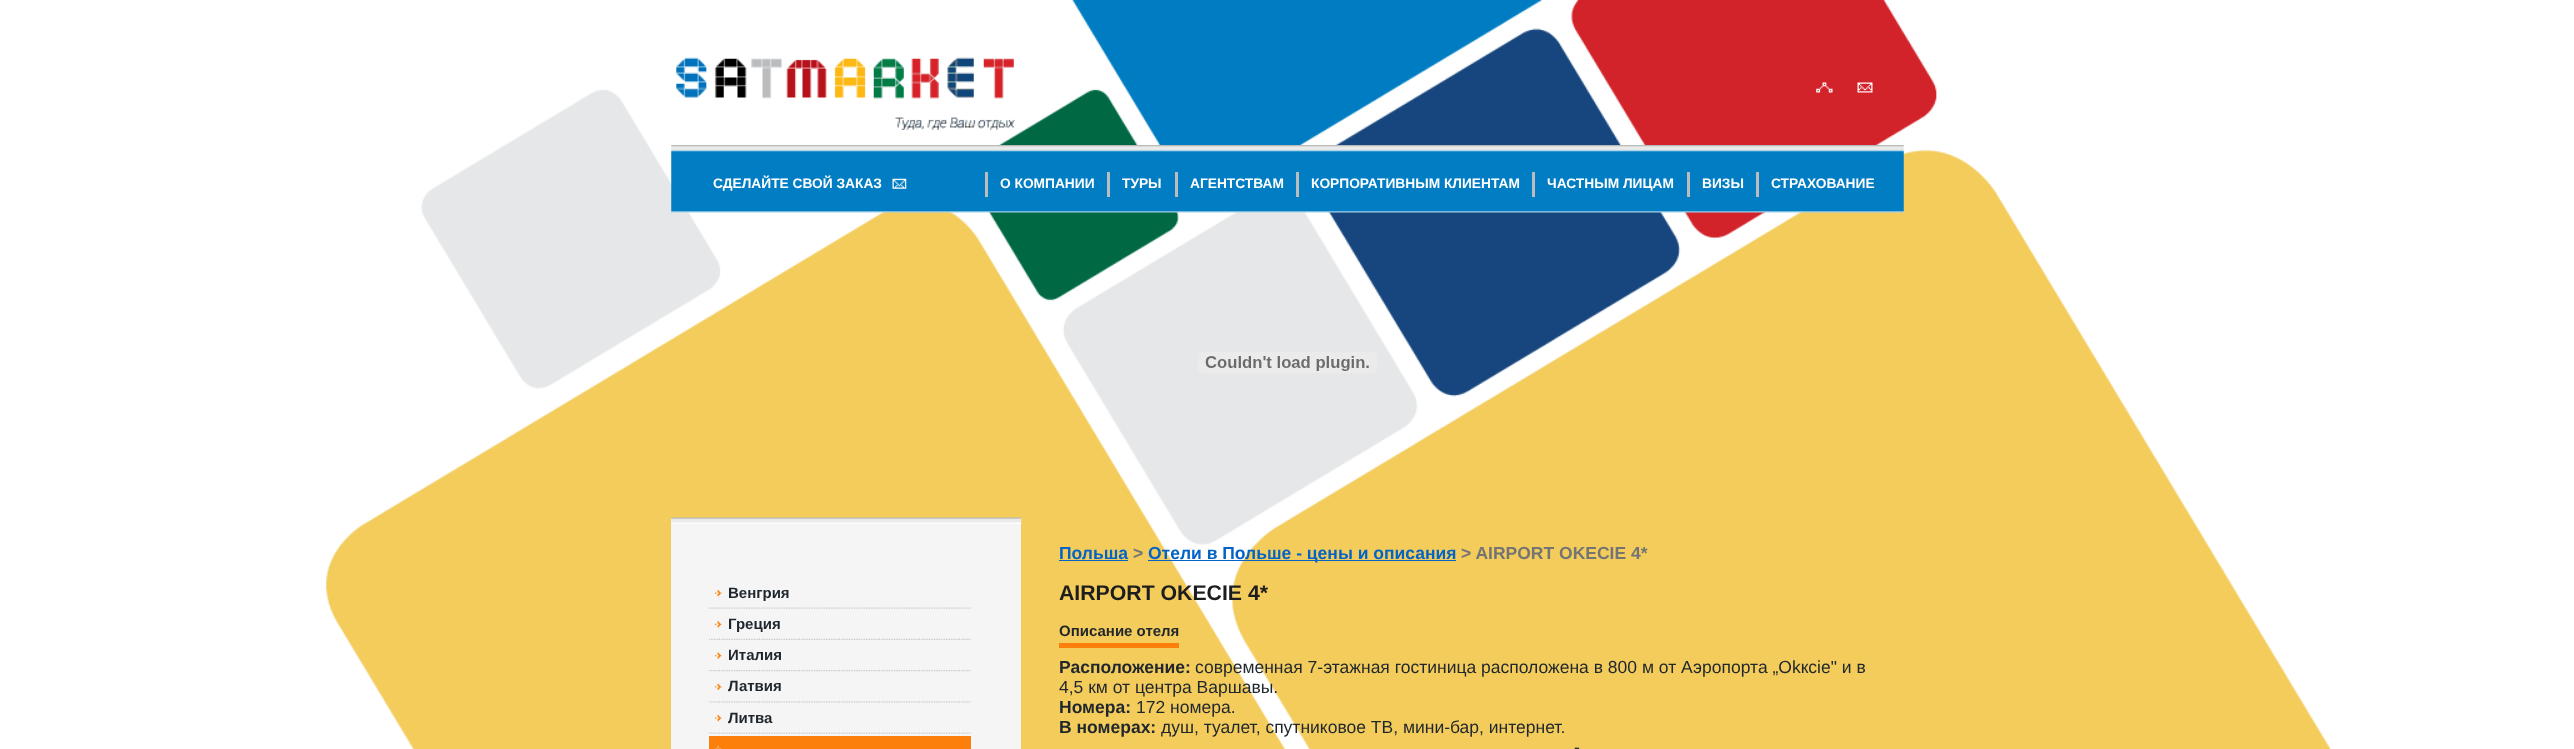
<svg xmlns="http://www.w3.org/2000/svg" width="2574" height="749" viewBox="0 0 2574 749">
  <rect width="100%" height="100%" fill="#fff"/>
  <image x="326" y="0" width="2006" height="749" href="img/1.png"/>
  <image x="676" y="57" width="340" height="73" href="img/2.png"/>
  <image x="1816" y="82" width="17" height="11" href="img/3.png"/>
  <image x="1857" y="82" width="16" height="11" href="img/4.png"/>
  <image x="671" y="145" width="1233" height="68" href="img/5.png"/>
  <image x="892" y="178" width="15" height="11" href="img/6.png"/>
  <path d="M985 172h3v25H985z" fill="#babcbe"/>
  <path d="M1107 172h3v25H1107z" fill="#babcbe"/>
  <path d="M1175 172h3v25H1175z" fill="#babcbe"/>
  <path d="M1296 172h3v25H1296z" fill="#babcbe"/>
  <path d="M1532 172h3v25H1532z" fill="#babcbe"/>
  <path d="M1687 172h3v25H1687z" fill="#babcbe"/>
  <path d="M1756 172h3v25H1756z" fill="#babcbe"/>
  <image x="1198" y="352" width="179" height="21" href="img/7.png"/>
  <path d="M671 518h350v231H671z" fill="#f5f5f5"/>
  <image x="671" y="517" width="351" height="7" href="img/8.png"/>
  <image x="714" y="590" width="8" height="7" href="img/9.png"/>
  <image x="709" y="607" width="263" height="2" href="img/10.png"/>
  <image x="714" y="621" width="8" height="7" href="img/11.png"/>
  <image x="709" y="638" width="263" height="2" href="img/12.png"/>
  <image x="714" y="652" width="8" height="7" href="img/13.png"/>
  <image x="709" y="670" width="263" height="2" href="img/14.png"/>
  <image x="714" y="683" width="8" height="7" href="img/15.png"/>
  <image x="709" y="701" width="263" height="2" href="img/16.png"/>
  <image x="714" y="715" width="8" height="7" href="img/9.png"/>
  <image x="709" y="732" width="263" height="2" href="img/10.png"/>
  <path d="M709 736h262v13H709z" fill="#fb7f0a"/>
  <image x="715" y="746" width="7" height="3" href="img/17.png"/>
  <path d="M1059 560h69v1H1059z" fill="#0363c7"/>
  <path d="M1148 560h308v1H1148z" fill="#0363c7"/>
  <path d="M1059 643h120v5H1059z" fill="#fb7f0a"/>
  <g font-family="Liberation Sans" font-size="13.75" font-weight="bold" fill="#fff">
    <text x="713" y="188">СДЕЛАЙТЕ СВОЙ ЗАКАЗ</text>
    <text x="1000" y="188">О КОМПАНИИ</text>
    <text x="1122" y="188">ТУРЫ</text>
    <text x="1190" y="188">АГЕНТСТВАМ</text>
    <text x="1311" y="188">КОРПОРАТИВНЫМ КЛИЕНТАМ</text>
    <text x="1547" y="188">ЧАСТНЫМ ЛИЦАМ</text>
    <text x="1702" y="188">ВИЗЫ</text>
    <text x="1771" y="188">СТРАХОВАНИЕ</text>
  </g>
  <g font-family="Liberation Sans" font-size="15" font-weight="bold" fill="#1f262d">
    <text x="728" y="598">Венгрия</text>
    <text x="728" y="629">Греция</text>
    <text x="728" y="660">Италия</text>
    <text x="728" y="691">Латвия</text>
    <text x="728" y="723">Литва</text>
  </g>
  <text x="1059" y="559" font-family="Liberation Sans" font-size="17.5" font-weight="bold" fill="#0363c7">Польша</text>
  <text x="1133" y="559" font-family="Liberation Sans" font-size="17.5" font-weight="bold" fill="#747474">&gt;</text>
  <text x="1148" y="559" font-family="Liberation Sans" font-size="17.5" font-weight="bold" fill="#0363c7">Отели в Польше - цены и описания</text>
  <text x="1461" y="559" font-family="Liberation Sans" font-size="17.5" font-weight="bold" fill="#747474">&gt; AIRPORT OKECIE 4*</text>
  <text x="1059" y="600" font-family="Liberation Sans" font-size="21.25" font-weight="bold" fill="#1d1d1d">AIRPORT OKECIE 4*</text>
  <text x="1059" y="636" font-family="Liberation Sans" font-size="15" font-weight="bold" fill="#1f262d">Описание отеля</text>
  <text x="1059" y="673" font-family="Liberation Sans" font-size="17.5" font-weight="bold" fill="#1f262d">Расположение:</text>
  <g font-family="Liberation Sans" font-size="17.5" fill="#1f262d">
    <text x="1195" y="673">современная 7-этажная гостиница расположена в 800 м от Аэропорта „Okкcie" и в</text>
    <text x="1059" y="693">4,5 км от центра Варшавы.</text>
  </g>
  <text x="1059" y="713" font-family="Liberation Sans" font-size="17.5" font-weight="bold" fill="#1f262d">Номера:</text>
  <text x="1136" y="713" font-family="Liberation Sans" font-size="17.5" fill="#1f262d">172 номера.</text>
  <text x="1059" y="733" font-family="Liberation Sans" font-size="17.5" font-weight="bold" fill="#1f262d">В номерах:</text>
  <g font-family="Liberation Sans" font-size="17.5" fill="#1f262d">
    <text x="1161" y="733">душ, туалет, спутниковое ТВ, мини-бар, интернет.</text>
    <text x="1574" y="753">-</text>
  </g>
</svg>
